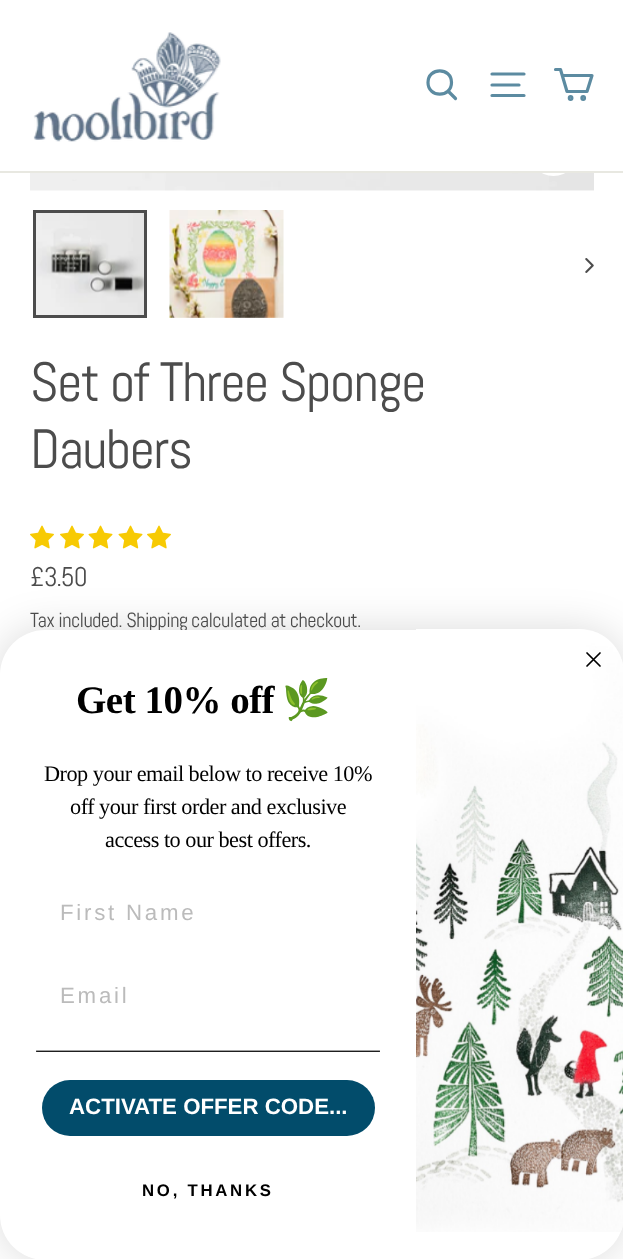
<svg xmlns="http://www.w3.org/2000/svg" width="623" height="1259" viewBox="0 0 623 1259">
  <rect width="100%" height="100%" fill="#fff"/>
  <image x="30" y="173" width="564" height="18" href="img/2.png"/>
  <circle cx="553.5" cy="150.5" r="25.5" fill="#fff"/>
  <path d="M0 171h623v2H0z" fill="#e8e8e1"/>
  <image x="33" y="32" width="188" height="110" href="img/1.png"/>
  <path d="M451.5 82.5C451.5 98 428 98 428 82.5C428 67 451.5 67 451.5 82.5ZM455.5 98.5L448 91" fill="none" stroke="#5c8ba1" stroke-width="3.2" stroke-linecap="round" stroke-linejoin="round"/>
  <path d="M492 74H524M492 85H519M492 95.5H524" fill="none" stroke="#5c8ba1" stroke-width="3.2" stroke-linecap="round" stroke-linejoin="round"/>
  <path d="M562.5 75.5H592L587 91.5H567L560.5 69.5H555.5" fill="none" stroke="#5c8ba1" stroke-width="3.2" stroke-linecap="round" stroke-linejoin="round"/>
  <circle cx="570.6" cy="98" r="1.3" fill="none" stroke="#5c8ba1" stroke-width="3.2"/>
  <circle cx="583.2" cy="98" r="1.3" fill="none" stroke="#5c8ba1" stroke-width="3.2"/>
  <image x="36" y="213" width="108" height="102" href="img/3.png"/>
  <path d="M34.5 211.5h111v105H34.5z" fill="none" stroke="#4c4c4c" stroke-width="3"/>
  <image x="169" y="210" width="115" height="108" href="img/4.png"/>
  <image x="585" y="258" width="9" height="15" href="img/5.png"/>
  <image x="30" y="525" width="24" height="24" href="img/6.png"/>
  <image x="60" y="525" width="24" height="24" href="img/6.png"/>
  <image x="88" y="525" width="25" height="24" href="img/7.png"/>
  <image x="118" y="525" width="25" height="24" href="img/7.png"/>
  <image x="147" y="525" width="24" height="24" href="img/6.png"/>
  <rect y="630" width="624" height="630" rx="45" fill="#00000026" filter="blur(21px)"/>
  <g font-family="Abel" font-size="55.25" letter-spacing="-1.4" fill="#4c4c4c">
    <text x="30" y="401">Set of Three Sponge</text>
    <text x="30" y="468">Daubers</text>
  </g>
  <text x="30" y="586" font-family="Abel" font-size="27" letter-spacing="-0.6" fill="#4c4c4c">£3.50</text>
  <g font-family="Abel" font-size="20.5" letter-spacing="-0.6" fill="#4c4c4c">
    <text x="30" y="627">Tax included. Shipping</text>
    <text x="191" y="627">calculated at checkout.</text>
  </g>
  <rect y="630" width="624" height="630" rx="45" fill="#fff"/>
  <text x="76" y="713" font-family="Liberation Serif" font-size="39" font-weight="bold" letter-spacing="-0.5" fill="#000">Get 10% off</text>
  <text x="282" y="713" font-family="Noto Color Emoji" font-size="39" letter-spacing="-0.5" fill="#000">🌿</text>
  <g font-family="Liberation Serif" font-size="22.25" letter-spacing="-0.5" fill="#000">
    <text x="44" y="781">Drop your email below to receive 10%</text>
    <text x="70" y="814">off your first order and exclusive</text>
    <text x="105" y="847">access to our best offers.</text>
  </g>
  <g font-family="Liberation Sans" font-size="22.25" letter-spacing="2.75" fill="#bbb">
    <text x="60" y="920">First Name</text>
    <text x="60" y="1003">Email</text>
  </g>
  <image x="36" y="1050" width="344" height="2" href="img/8.png"/>
  <rect x="42" y="1080" width="333" height="56" rx="28" fill="#024c6b"/>
  <text x="69" y="1114" font-family="Liberation Sans" font-size="22.25" font-weight="bold" fill="#fff">ACTIVATE OFFER CODE...</text>
  <text x="142" y="1196" font-family="Liberation Sans" font-size="16.75" font-weight="bold" letter-spacing="2.75" fill="#000">NO, THANKS</text>
  <image x="416" y="629" width="207" height="603" href="img/9.png"/>
  <path d="M587 653L600 666M587 666L600 653Z" fill="none" stroke="#000" stroke-width="1.7" stroke-linecap="round" stroke-linejoin="round"/>
</svg>
